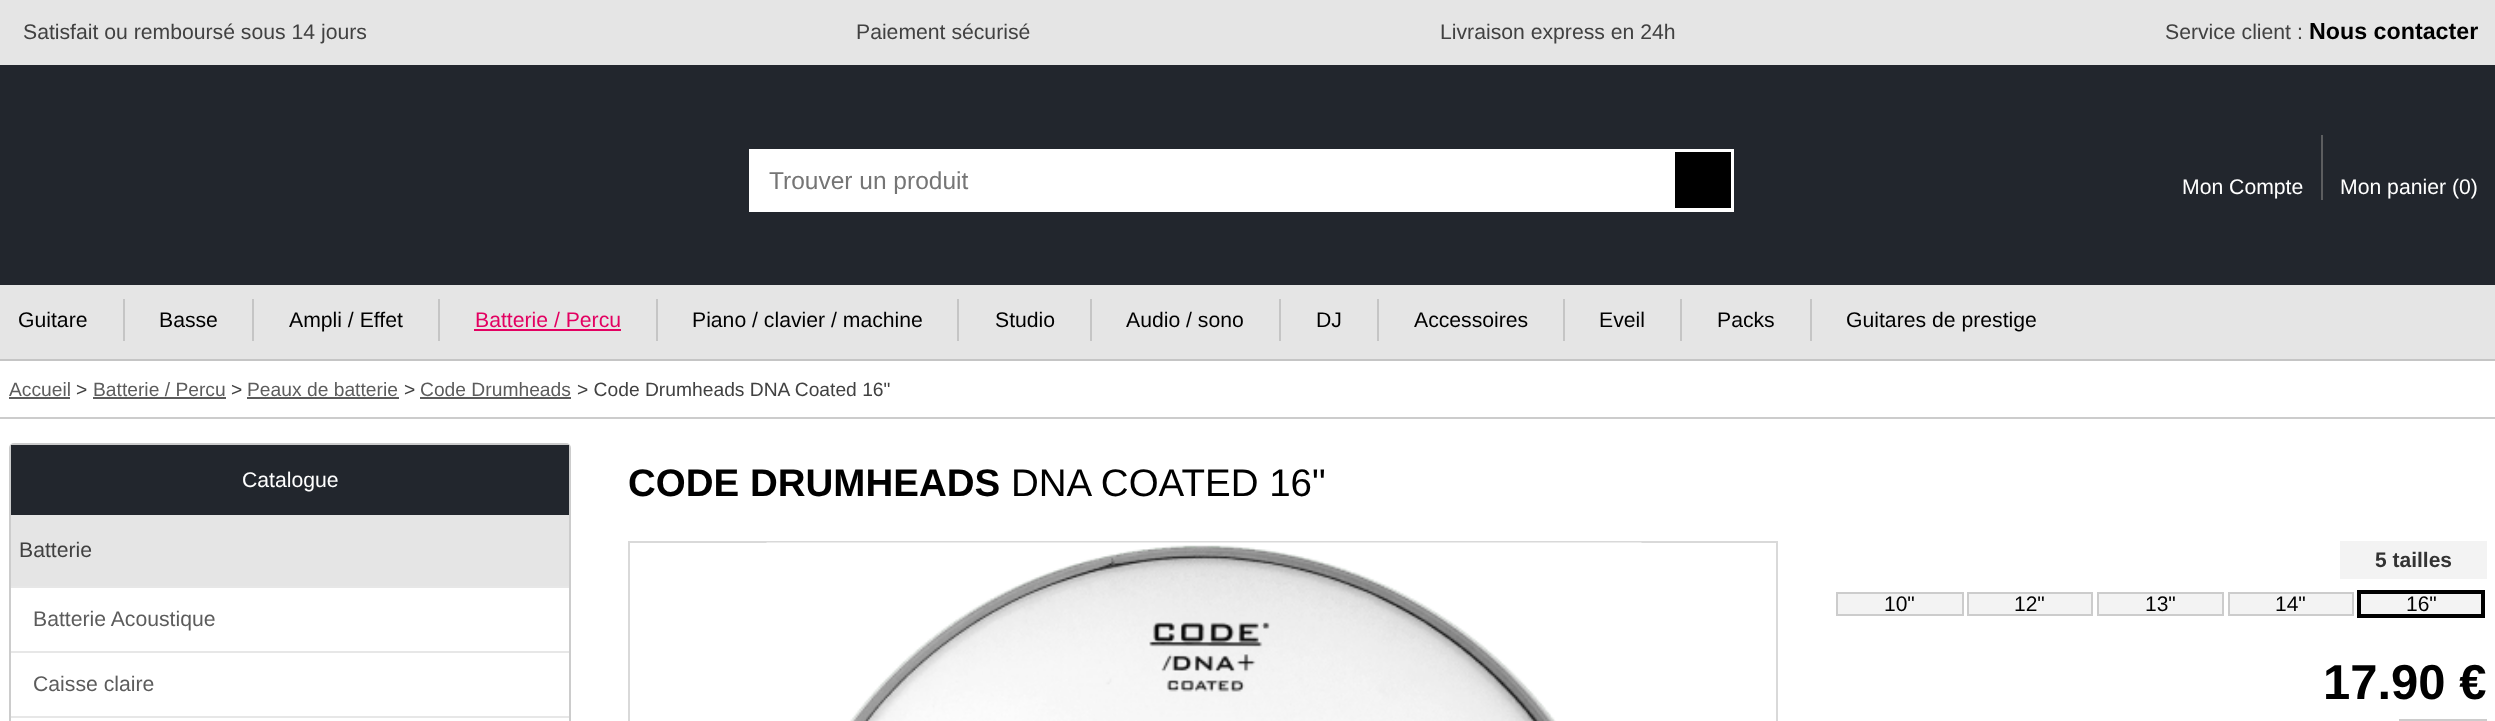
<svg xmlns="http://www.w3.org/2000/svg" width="2495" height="721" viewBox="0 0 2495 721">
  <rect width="100%" height="100%" fill="#fff"/>
  <path d="M0 0h2495v65H0z" fill="#e5e5e5"/>
  <path d="M0 65h2495v220H0z" fill="#22262d"/>
  <path d="M749 149h985v63H749z" fill="#fff"/>
  <path d="M1675 152h56v56H1675z" fill="#000"/>
  <path d="M2321 135h2v65H2321z" fill="#5c5d5f"/>
  <path d="M0 285h2495v74H0z" fill="#e5e5e5"/>
  <path d="M0 359h2495v2H0z" fill="#c5c5c5"/>
  <path d="M123 299h2v42H123z" fill="#c5c5c5"/>
  <path d="M252 299h2v42H252z" fill="#c5c5c5"/>
  <path d="M438 299h2v42H438z" fill="#c5c5c5"/>
  <path d="M656 299h2v42H656z" fill="#c5c5c5"/>
  <path d="M474 329h147v2H474z" fill="#e30061"/>
  <path d="M957 299h2v42H957z" fill="#c5c5c5"/>
  <path d="M1090 299h2v42H1090z" fill="#c5c5c5"/>
  <path d="M1279 299h2v42H1279z" fill="#c5c5c5"/>
  <path d="M1377 299h2v42H1377z" fill="#c5c5c5"/>
  <path d="M1563 299h2v42H1563z" fill="#c5c5c5"/>
  <path d="M1680 299h2v42H1680z" fill="#c5c5c5"/>
  <path d="M1810 299h2v42H1810z" fill="#c5c5c5"/>
  <path d="M0 417h2495v2H0z" fill="#ccc"/>
  <path d="M9 397h61v2H9z" fill="#5c5c5c"/>
  <path d="M93 397h133v2H93z" fill="#5c5c5c"/>
  <path d="M247 397h152v2H247z" fill="#5c5c5c"/>
  <path d="M420 397h151v2H420z" fill="#5c5c5c"/>
  <rect x="10" y="444" width="560" height="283" rx="4" fill="none" stroke="#ccc" stroke-width="2"/>
  <path d="M11 445h558v70H11z" fill="#22262d"/>
  <path d="M11 515h558v71H11z" fill="#e5e5e5"/>
  <path d="M11 586h558v2H11z" fill="#e7e7e7"/>
  <path d="M11 651h558v2H11z" fill="#e7e7e7"/>
  <path d="M11 716h558v2H11z" fill="#e7e7e7"/>
  <path d="M629 542h1148v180H629z" fill="none" stroke="#d9d9d9" stroke-width="2"/>
  <image x="766" y="542" width="876" height="179" href="img/1.png"/>
  <path d="M2340 541h147v38H2340z" fill="#f3f3f3"/>
  <path d="M1837 593h126v22H1837z" fill="#f3f3f3" stroke="#ccc" stroke-width="2"/>
  <path d="M1968 593h124v22H1968z" fill="#f3f3f3" stroke="#ccc" stroke-width="2"/>
  <path d="M2098 593h125v22H2098z" fill="#f3f3f3" stroke="#ccc" stroke-width="2"/>
  <path d="M2229 593h124v22H2229z" fill="#f3f3f3" stroke="#ccc" stroke-width="2"/>
  <path d="M2359 592h124v24H2359z" fill="#f3f3f3" stroke="#000" stroke-width="4"/>
  <path d="M2400 720h86v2H2400z" fill="none" stroke="#ccc" stroke-width="2"/>
  <g font-family="Liberation Sans" font-size="21.2" fill="#414141">
    <text x="23" y="39">Satisfait ou remboursé sous 14 jours</text>
    <text x="856" y="39">Paiement sécurisé</text>
    <text x="1440" y="39">Livraison express en 24h</text>
    <text x="2165" y="39">Service client :</text>
  </g>
  <text x="2309" y="39" font-family="Liberation Sans" font-size="23.25" font-weight="bold" fill="#000">Nous contacter</text>
  <text x="769" y="189" font-family="Liberation Sans" font-size="24.5" fill="#757575">Trouver un produit</text>
  <g font-family="Liberation Sans" font-size="21.2" fill="#fff">
    <text x="2182" y="194">Mon Compte</text>
    <text x="2340" y="194">Mon panier (0)</text>
  </g>
  <g font-family="Liberation Sans" font-size="21.2" fill="#000">
    <text x="18" y="327">Guitare</text>
    <text x="159" y="327">Basse</text>
    <text x="289" y="327">Ampli / Effet</text>
  </g>
  <text x="475" y="327" font-family="Liberation Sans" font-size="21.2" fill="#e30061">Batterie / Percu</text>
  <g font-family="Liberation Sans" font-size="21.2" fill="#000">
    <text x="692" y="327">Piano / clavier / machine</text>
    <text x="995" y="327">Studio</text>
    <text x="1126" y="327">Audio / sono</text>
    <text x="1316" y="327">DJ</text>
    <text x="1414" y="327">Accessoires</text>
    <text x="1599" y="327">Eveil</text>
    <text x="1717" y="327">Packs</text>
    <text x="1846" y="327">Guitares de prestige</text>
  </g>
  <text x="9" y="396" font-family="Liberation Sans" font-size="19.25" fill="#5c5c5c">Accueil</text>
  <text x="76" y="396" font-family="Liberation Sans" font-size="19.25" fill="#414141">&gt;</text>
  <text x="93" y="396" font-family="Liberation Sans" font-size="19.25" fill="#5c5c5c">Batterie / Percu</text>
  <text x="231" y="396" font-family="Liberation Sans" font-size="19.25" fill="#414141">&gt;</text>
  <text x="247" y="396" font-family="Liberation Sans" font-size="19.25" fill="#5c5c5c">Peaux de batterie</text>
  <text x="404" y="396" font-family="Liberation Sans" font-size="19.25" fill="#414141">&gt;</text>
  <text x="420" y="396" font-family="Liberation Sans" font-size="19.25" fill="#5c5c5c">Code Drumheads</text>
  <text x="577" y="396" font-family="Liberation Sans" font-size="19.25" fill="#414141">&gt; Code Drumheads DNA Coated 16"</text>
  <text x="242" y="487" font-family="Liberation Sans" font-size="21.2" fill="#fff">Catalogue</text>
  <text x="19" y="557" font-family="Liberation Sans" font-size="21.2" fill="#414141">Batterie</text>
  <g font-family="Liberation Sans" font-size="21.2" fill="#5c5c5c">
    <text x="33" y="626">Batterie Acoustique</text>
    <text x="33" y="691">Caisse claire</text>
  </g>
  <text x="628" y="496" font-family="Liberation Sans" font-size="38.5" font-weight="bold" fill="#000">CODE DRUMHEADS</text>
  <text x="1011" y="496" font-family="Liberation Sans" font-size="38.5" fill="#000">DNA COATED 16"</text>
  <text x="2375" y="567" font-family="Liberation Sans" font-size="21" font-weight="bold" fill="#333">5 tailles</text>
  <g font-family="Liberation Sans" font-size="21" fill="#000">
    <text x="1884" y="611">10"</text>
    <text x="2014" y="611">12"</text>
    <text x="2145" y="611">13"</text>
    <text x="2275" y="611">14"</text>
    <text x="2406" y="611">16"</text>
  </g>
  <text x="2323" y="699" font-family="Liberation Sans" font-size="49" font-weight="bold" fill="#000">17.90 €</text>
</svg>
